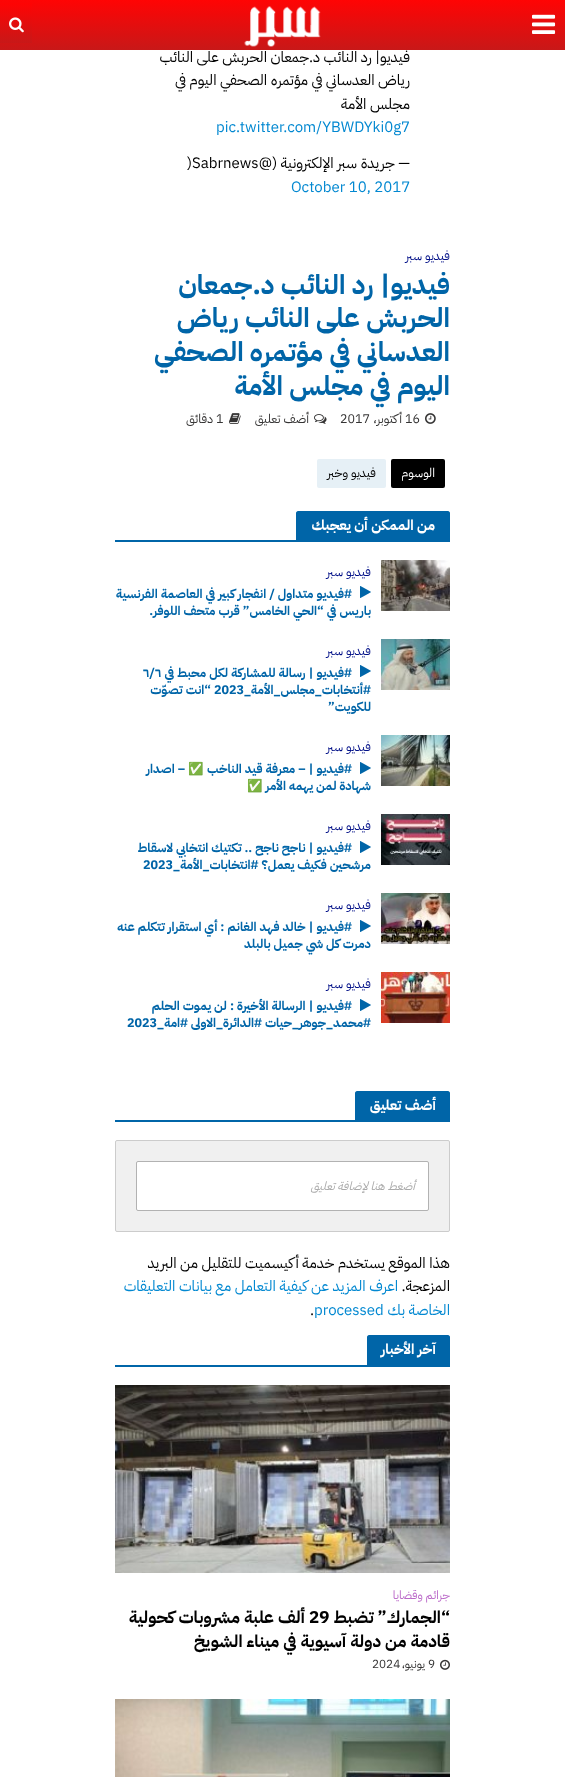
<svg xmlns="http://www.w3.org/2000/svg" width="565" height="1777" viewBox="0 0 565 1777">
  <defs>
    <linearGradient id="g1" gradientUnits="userSpaceOnUse" x1="283" y1="50" x2="283" y2="0"><stop offset="0" stop-color="#c81818"/><stop offset="1" stop-color="#ff0404"/></linearGradient>
    <linearGradient id="g2" gradientUnits="userSpaceOnUse" x1="16" y1="43" x2="16" y2="3"><stop offset="0" stop-color="#c81818"/><stop offset="1" stop-color="#ff0404"/></linearGradient>
  </defs>
  <rect width="100%" height="100%" fill="#fff"/>
  <path d="M0 0h565v50H0z" fill="url(#g1)"/>
  <image x="532" y="14" width="24" height="20" href="img/1.png"/>
  <image x="244" y="6" width="77" height="41" href="img/2.png"/>
  <path d="M0 3h32v40H0z" fill="url(#g2)"/>
  <image x="9" y="17" width="15" height="16" href="img/3.png"/>
  <image x="425" y="413" width="11" height="11" href="img/4.png"/>
  <image x="314" y="414" width="13" height="10" href="img/5.png"/>
  <image x="229" y="413" width="12" height="11" href="img/6.png"/>
  <rect x="391" y="459" width="54" height="29" rx="2" fill="#000"/>
  <rect x="317" y="459" width="69" height="29" rx="2" fill="#e6f0f6"/>
  <path d="M298 511H448C449 511 450 512 450 513V540H296V513C296 512 297 511 298 511Z" fill="#0065a8"/>
  <path d="M115 540h335v2H115z" fill="#0065a8"/>
  <image x="381" y="560" width="69" height="51" href="img/7.png"/>
  <image x="360" y="586" width="11" height="12" href="img/8.png"/>
  <image x="381" y="639" width="69" height="51" href="img/9.png"/>
  <image x="360" y="665" width="11" height="12" href="img/8.png"/>
  <image x="381" y="735" width="69" height="51" href="img/10.png"/>
  <image x="360" y="762" width="11" height="12" href="img/8.png"/>
  <image x="381" y="814" width="69" height="51" href="img/11.png"/>
  <image x="360" y="841" width="11" height="12" href="img/8.png"/>
  <image x="381" y="893" width="69" height="51" href="img/12.png"/>
  <image x="360" y="920" width="11" height="12" href="img/8.png"/>
  <image x="381" y="972" width="69" height="51" href="img/13.png"/>
  <image x="360" y="999" width="11" height="12" href="img/8.png"/>
  <path d="M357 1091H448C449 1091 450 1092 450 1093V1120H355V1093C355 1092 356 1091 357 1091Z" fill="#0065a8"/>
  <path d="M115 1120h335v2H115z" fill="#0065a8"/>
  <rect x="115.5" y="1140.5" width="334" height="91" rx="1.5" fill="#f0f0f0" stroke="#ccc"/>
  <rect x="136.5" y="1161.5" width="292" height="49" rx="1.5" fill="#fff" stroke="#b2b2b2"/>
  <path d="M369 1335H448C449 1335 450 1336 450 1337V1365H367V1337C367 1336 368 1335 369 1335Z" fill="#0065a8"/>
  <path d="M115 1365h335v2H115z" fill="#0065a8"/>
  <image x="115" y="1385" width="335" height="188" href="img/14.png"/>
  <image x="440" y="1659" width="10" height="11" href="img/15.png"/>
  <image x="115" y="1699" width="335" height="78" href="img/16.png"/>
  <g font-family="IBM Plex Sans Arabic" font-size="15" direction="rtl" fill="#000">
    <text x="410" y="62">فيديو| رد النائب د.جمعان الحربش على النائب</text>
    <text x="410" y="85">رياض العدساني في مؤتمره الصحفي اليوم في</text>
    <text x="410" y="109">مجلس الأمة</text>
  </g>
  <text x="216" y="132" font-family="IBM Plex Sans Arabic" font-size="15" fill="#0288d1">pic.twitter.com/YBWDYki0g7</text>
  <text x="410" y="168" font-family="IBM Plex Sans Arabic" font-size="15" direction="rtl" fill="#000">— جريدة سبر الإلكترونية (@</text>
  <text x="187" y="168" font-family="IBM Plex Sans Arabic" font-size="15" fill="#000">)Sabrnews</text>
  <text x="291" y="192" font-family="IBM Plex Sans Arabic" font-size="15" fill="#0288d1">October 10, 2017</text>
  <text x="450" y="260" font-family="IBM Plex Sans Arabic" font-size="12.5" direction="rtl" fill="#000f87">فيديو سبر</text>
  <g font-family="IBM Plex Sans Arabic" font-size="26.9" font-weight="bold" direction="rtl" fill="#0065a8">
    <text x="450" y="294">فيديو| رد النائب د.جمعان</text>
    <text x="450" y="327">الحربش على النائب رياض</text>
    <text x="450" y="361">العدساني في مؤتمره الصحفي</text>
    <text x="450" y="395">اليوم في مجلس الأمة</text>
  </g>
  <text x="405" y="423" font-family="IBM Plex Sans Arabic" font-size="12.5" fill="#353434">16</text>
  <text x="402" y="423" font-family="IBM Plex Sans Arabic" font-size="12.5" direction="rtl" fill="#353434">أكتوبر،</text>
  <text x="340" y="423" font-family="IBM Plex Sans Arabic" font-size="12.5" fill="#353434">2017</text>
  <text x="309" y="423" font-family="IBM Plex Sans Arabic" font-size="12.5" direction="rtl" fill="#353434">أضف تعليق</text>
  <text x="216" y="423" font-family="IBM Plex Sans Arabic" font-size="12.5" fill="#353434">1</text>
  <text x="213" y="423" font-family="IBM Plex Sans Arabic" font-size="12.5" direction="rtl" fill="#353434">دقائق</text>
  <text x="435" y="477" font-family="IBM Plex Sans Arabic" font-size="12.5" direction="rtl" fill="#fff">الوسوم</text>
  <text x="376" y="477" font-family="IBM Plex Sans Arabic" font-size="12.5" direction="rtl" fill="#000">فيديو وخبر</text>
  <text x="435" y="530" font-family="IBM Plex Sans Arabic" font-size="14.25" font-weight="bold" direction="rtl" fill="#fff">من الممكن أن يعجبك</text>
  <text x="371" y="576" font-family="IBM Plex Sans Arabic" font-size="12.5" direction="rtl" fill="#000f87">فيديو سبر</text>
  <g font-family="IBM Plex Sans Arabic" font-size="12.5" font-weight="bold" direction="rtl" fill="#0065a8">
    <text x="352" y="598">#فيديو متداول / انفجار كبير في العاصمة الفرنسية</text>
    <text x="371" y="615">باريس في “الحي الخامس” قرب متحف اللوفر.</text>
  </g>
  <text x="371" y="655" font-family="IBM Plex Sans Arabic" font-size="12.5" direction="rtl" fill="#000f87">فيديو سبر</text>
  <text x="352" y="677" font-family="IBM Plex Sans Arabic" font-size="12.5" font-weight="bold" direction="rtl" fill="#0065a8">#فيديو | رسالة للمشاركة لكل محبط في</text>
  <text x="143" y="677" font-family="IBM Plex Sans Arabic" font-size="12.5" font-weight="bold" fill="#0065a8">٦/٦</text>
  <text x="371" y="694" font-family="IBM Plex Sans Arabic" font-size="12.5" font-weight="bold" direction="rtl" fill="#0065a8">#أنتخابات_مجلس_الأمة_</text>
  <text x="214" y="694" font-family="IBM Plex Sans Arabic" font-size="12.5" font-weight="bold" fill="#0065a8">2023</text>
  <g font-family="IBM Plex Sans Arabic" font-size="12.5" font-weight="bold" direction="rtl" fill="#0065a8">
    <text x="211" y="694">“انت تصوّت</text>
    <text x="371" y="711">للكويت”</text>
  </g>
  <text x="371" y="751" font-family="IBM Plex Sans Arabic" font-size="12.5" direction="rtl" fill="#000f87">فيديو سبر</text>
  <text x="352" y="773" font-family="IBM Plex Sans Arabic" font-size="12.5" font-weight="bold" direction="rtl" fill="#0065a8">#فيديو | – معرفة قيد الناخب</text>
  <text x="204" y="773" font-family="Noto Color Emoji" font-size="12.5" font-weight="bold" direction="rtl" fill="#0065a8">✅</text>
  <g font-family="IBM Plex Sans Arabic" font-size="12.5" font-weight="bold" direction="rtl" fill="#0065a8">
    <text x="185" y="773">– اصدار</text>
    <text x="371" y="790">شهادة لمن يهمه الأمر</text>
  </g>
  <text x="263" y="790" font-family="Noto Color Emoji" font-size="12.5" font-weight="bold" direction="rtl" fill="#0065a8">✅</text>
  <text x="371" y="830" font-family="IBM Plex Sans Arabic" font-size="12.5" direction="rtl" fill="#000f87">فيديو سبر</text>
  <g font-family="IBM Plex Sans Arabic" font-size="12.5" font-weight="bold" direction="rtl" fill="#0065a8">
    <text x="352" y="852">#فيديو | ناجح ناجح .. تكتيك انتخابي لاسقاط</text>
    <text x="371" y="869">مرشحين فكيف يعمل؟ #انتخابات_الأمة_</text>
  </g>
  <text x="143" y="869" font-family="IBM Plex Sans Arabic" font-size="12.5" font-weight="bold" fill="#0065a8">2023</text>
  <text x="371" y="909" font-family="IBM Plex Sans Arabic" font-size="12.5" direction="rtl" fill="#000f87">فيديو سبر</text>
  <g font-family="IBM Plex Sans Arabic" font-size="12.5" font-weight="bold" direction="rtl" fill="#0065a8">
    <text x="352" y="931">#فيديو | خالد فهد الغانم : أي استقرار تتكلم عنه</text>
    <text x="371" y="948">دمرت كل شي جميل بالبلد</text>
  </g>
  <text x="371" y="988" font-family="IBM Plex Sans Arabic" font-size="12.5" direction="rtl" fill="#000f87">فيديو سبر</text>
  <g font-family="IBM Plex Sans Arabic" font-size="12.5" font-weight="bold" direction="rtl" fill="#0065a8">
    <text x="352" y="1010">#فيديو | الرسالة الأخيرة : لن يموت الحلم</text>
    <text x="371" y="1027">#محمد_جوهر_حيات #الدائرة_الاولى</text>
    <text x="188" y="1027">#امة_</text>
  </g>
  <text x="127" y="1027" font-family="IBM Plex Sans Arabic" font-size="12.5" font-weight="bold" fill="#0065a8">2023</text>
  <text x="436" y="1110" font-family="IBM Plex Sans Arabic" font-size="14.25" font-weight="bold" direction="rtl" fill="#fff">أضف تعليق</text>
  <text x="415" y="1190" font-family="IBM Plex Sans Arabic" font-size="11.75" font-style="italic" direction="rtl" fill="#aaa">أضغط هنا لإضافة تعليق</text>
  <g font-family="IBM Plex Sans Arabic" font-size="15" direction="rtl" fill="#000">
    <text x="450" y="1268">هذا الموقع يستخدم خدمة أكيسميت للتقليل من البريد</text>
    <text x="450" y="1291">المزعجة.</text>
  </g>
  <g font-family="IBM Plex Sans Arabic" font-size="15" direction="rtl" fill="#0288d1">
    <text x="398" y="1291">اعرف المزيد عن كيفية التعامل مع بيانات التعليقات</text>
    <text x="450" y="1315">الخاصة بك</text>
  </g>
  <text x="314" y="1315" font-family="IBM Plex Sans Arabic" font-size="15" fill="#0288d1">processed</text>
  <text x="310" y="1315" font-family="IBM Plex Sans Arabic" font-size="15" fill="#000">.</text>
  <text x="436" y="1354" font-family="IBM Plex Sans Arabic" font-size="14.25" font-weight="bold" direction="rtl" fill="#fff">آخر الأخبار</text>
  <text x="450" y="1599" font-family="IBM Plex Sans Arabic" font-size="11.75" direction="rtl" fill="#ba68c8">جرائم وقضايا</text>
  <text x="450" y="1623" font-family="IBM Plex Sans Arabic" font-size="17" font-weight="bold" direction="rtl" fill="#000">“الجمارك” تضبط</text>
  <text x="309" y="1623" font-family="IBM Plex Sans Arabic" font-size="17" font-weight="bold" fill="#000">29</text>
  <g font-family="IBM Plex Sans Arabic" font-size="17" font-weight="bold" direction="rtl" fill="#000">
    <text x="305" y="1623">ألف علبة مشروبات كحولية</text>
    <text x="450" y="1647">قادمة من دولة آسيوية في ميناء الشويخ</text>
  </g>
  <text x="428" y="1668" font-family="IBM Plex Sans Arabic" font-size="11.75" fill="#353434">9</text>
  <text x="425" y="1668" font-family="IBM Plex Sans Arabic" font-size="11.75" direction="rtl" fill="#353434">يونيو،</text>
  <text x="372" y="1668" font-family="IBM Plex Sans Arabic" font-size="11.75" fill="#353434">2024</text>
</svg>
